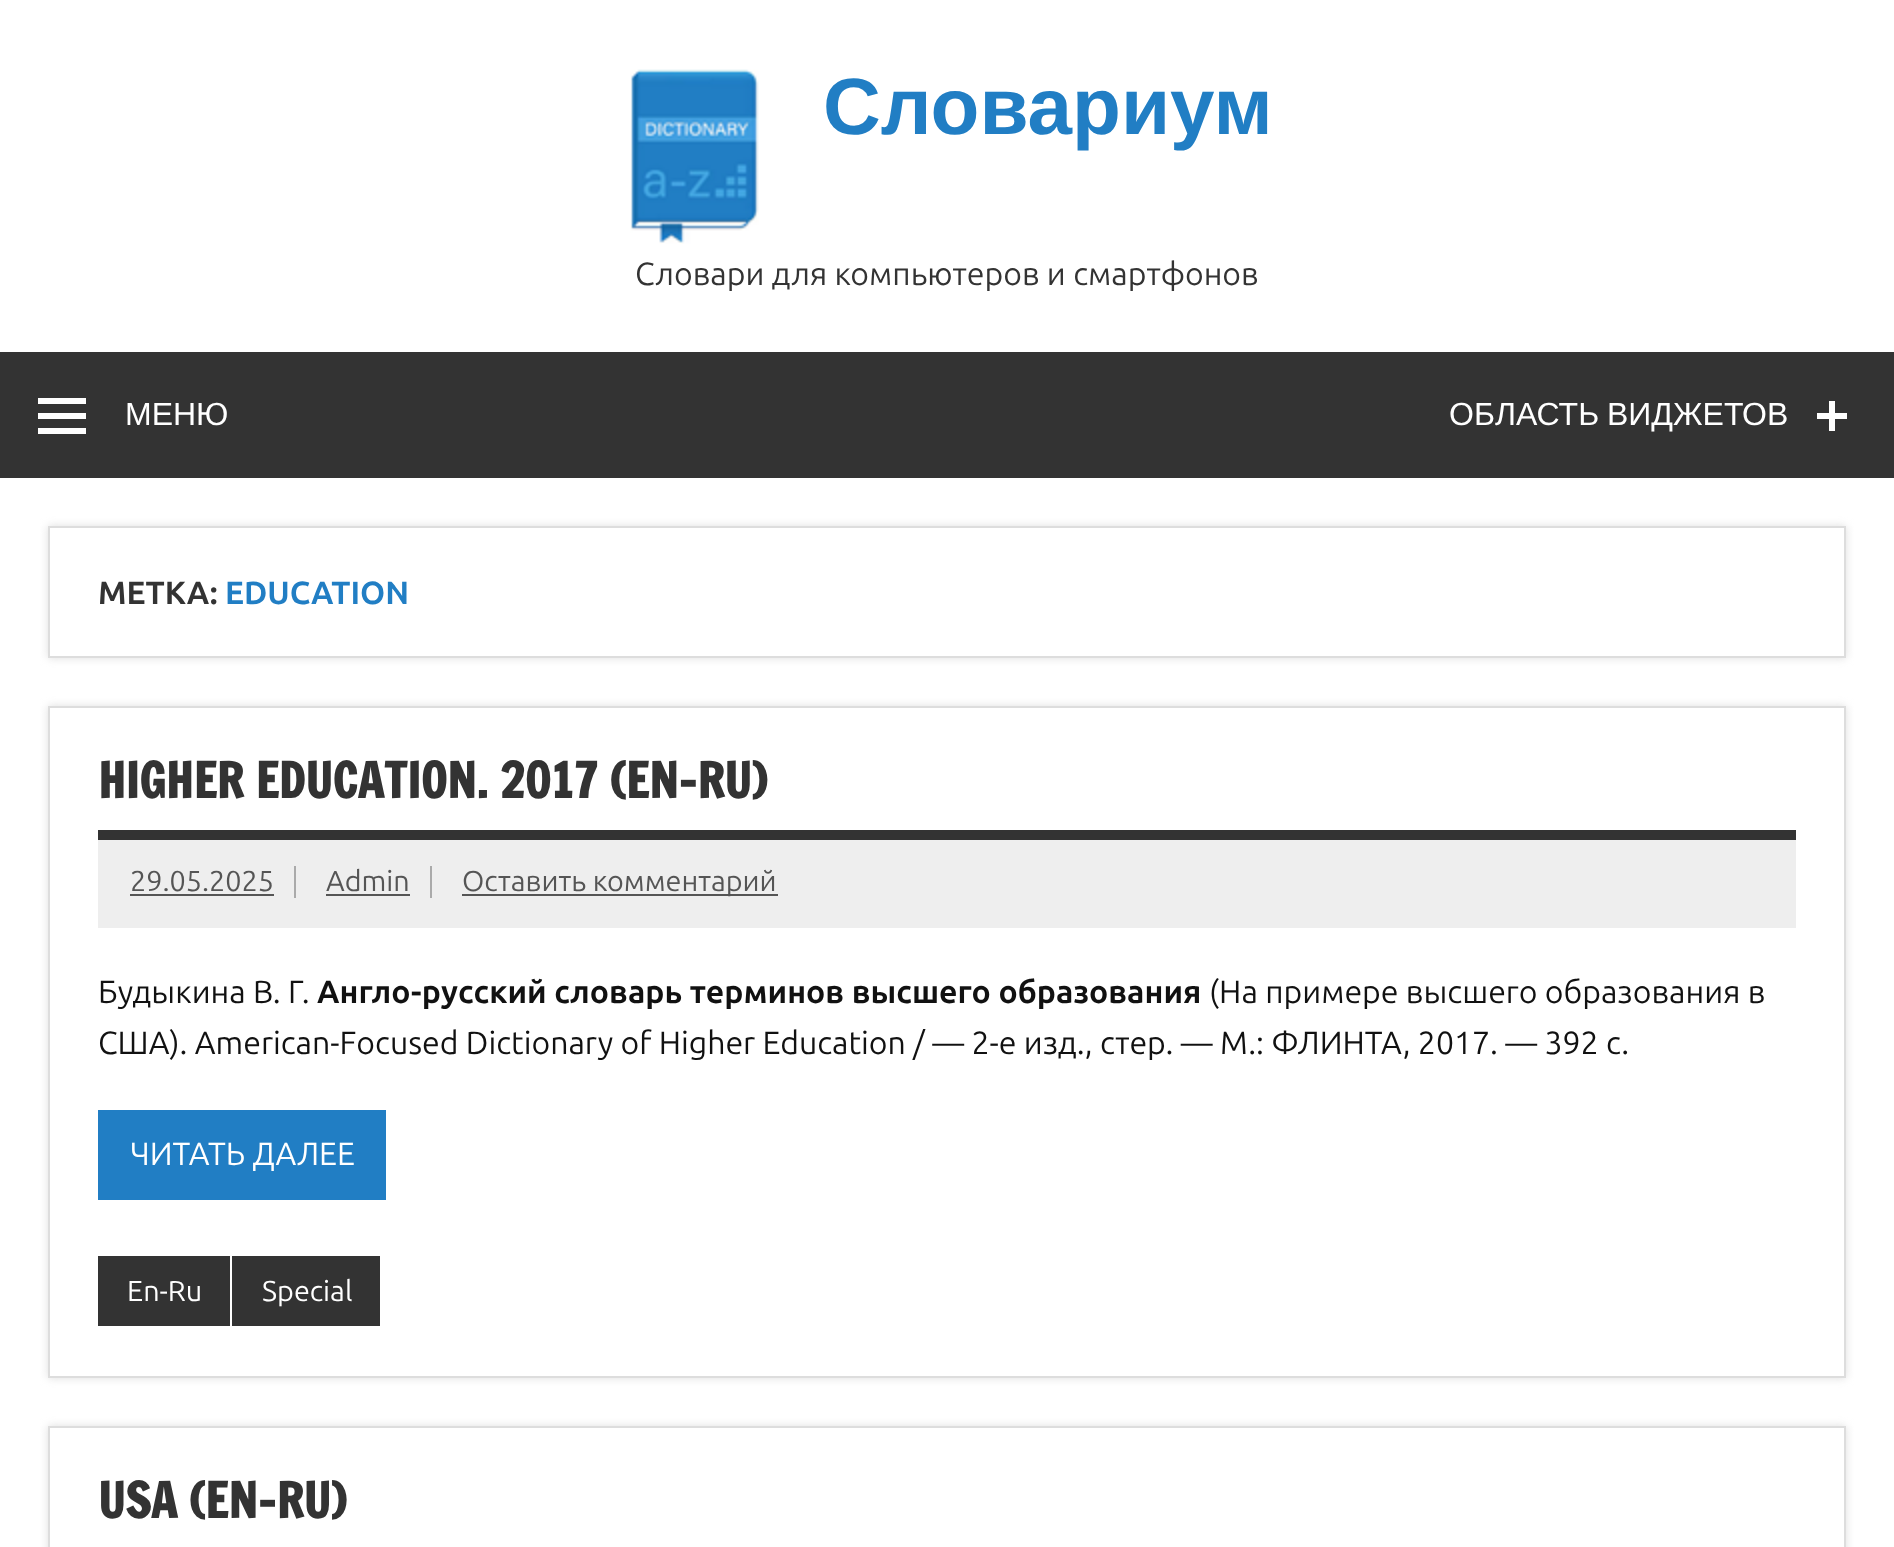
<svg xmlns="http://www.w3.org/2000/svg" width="1894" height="1547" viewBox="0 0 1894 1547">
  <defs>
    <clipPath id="clip1"><path d="M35 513H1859V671H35ZM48 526H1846V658H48Z" clip-rule="evenodd"/></clipPath>
    <clipPath id="clip2"><path d="M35 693H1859V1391H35ZM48 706H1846V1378H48Z" clip-rule="evenodd"/></clipPath>
    <clipPath id="clip3"><path d="M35 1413H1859V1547H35ZM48 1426H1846V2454H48Z" clip-rule="evenodd"/></clipPath>
  </defs>
  <rect width="100%" height="100%" fill="#fff"/>
  <image x="630" y="69" width="129" height="175" href="img/1.png"/>
  <path d="M0 352h1894v126H0z" fill="#333"/>
  <path d="M38 434V428H86V434ZM38 398H86V404H38ZM38 419V413H86V419Z" fill="#fff"/>
  <image x="1817" y="401" width="30" height="30" href="img/2.png"/>
  <g clip-path="url(#clip1)">
    <path d="M48 526h1798v132H48z" fill="#ddd" filter="blur(4px)"/>
  </g>
  <path d="M49 527h1796v130H49z" fill="none" stroke="#ddd" stroke-width="2"/>
  <g clip-path="url(#clip2)">
    <path d="M48 706h1798v672H48z" fill="#ddd" filter="blur(4px)"/>
  </g>
  <path d="M49 707h1796v670H49z" fill="none" stroke="#ddd" stroke-width="2"/>
  <path d="M98 830h1698v10H98z" fill="#333"/>
  <path d="M98 840h1698v88H98z" fill="#eee"/>
  <path d="M294 866h2v32H294z" fill="#aaa"/>
  <path d="M130 894h144v2H130z" fill="#555"/>
  <path d="M430 866h2v32H430z" fill="#aaa"/>
  <path d="M326 894h84v2H326z" fill="#555"/>
  <path d="M462 894h316v2H462z" fill="#555"/>
  <path d="M98 1110h288v90H98z" fill="#217ec4"/>
  <path d="M98 1256h132v70H98z" fill="#333"/>
  <path d="M232 1256h148v70H232z" fill="#333"/>
  <g clip-path="url(#clip3)">
    <path d="M48 1426h1798v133H48z" fill="#ddd" filter="blur(4px)"/>
  </g>
  <path d="M49 1427h1796v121H49z" fill="none" stroke="#ddd" stroke-width="2"/>
  <text x="823" y="134" font-family="Liberation Sans" font-size="80" font-weight="bold" fill="#217ec4">Словариум</text>
  <text x="635" y="285" font-family="Ubuntu" font-size="32" fill="#333">Словари для компьютеров и смартфонов</text>
  <g font-family="Liberation Sans" font-size="32" fill="#fff">
    <text x="125" y="425">МЕНЮ</text>
    <text x="1449" y="425" word-spacing="-1">ОБЛАСТЬ ВИДЖЕТОВ</text>
  </g>
  <text x="98" y="604" font-family="Ubuntu" font-size="32" font-weight="bold" fill="#333">МЕТКА:</text>
  <text x="225" y="604" font-family="Ubuntu" font-size="32" font-weight="bold" fill="#217ec4">EDUCATION</text>
  <text x="98" y="798" font-family="Francois One" font-size="48" font-weight="bold" fill="#333">HIGHER EDUCATION. 2017 (EN-RU)</text>
  <g font-family="Ubuntu" font-size="28.75" fill="#555">
    <text x="130" y="891">29.05.2025</text>
    <text x="326" y="891">Admin</text>
    <text x="462" y="891">Оставить комментарий</text>
  </g>
  <text x="98" y="1003" font-family="Ubuntu" font-size="32" fill="#111">Будыкина В. Г.</text>
  <text x="317" y="1003" font-family="Ubuntu" font-size="32" font-weight="bold" fill="#111">Англо-русский словарь терминов высшего образования</text>
  <g font-family="Ubuntu" font-size="32" fill="#111">
    <text x="1209" y="1003">(На примере высшего образования в</text>
    <text x="98" y="1054">США). American-Focused Dictionary of Higher Education / — 2-е изд., стер. — М.: ФЛИНТА, 2017. — 392 с.</text>
  </g>
  <text x="130" y="1165" font-family="Ubuntu" font-size="32" fill="#fff">ЧИТАТЬ ДАЛЕЕ</text>
  <g font-family="Ubuntu" font-size="28.75" fill="#fff">
    <text x="127" y="1301">En-Ru</text>
    <text x="262" y="1301">Special</text>
  </g>
  <text x="98" y="1518" font-family="Francois One" font-size="48" font-weight="bold" fill="#333">USA (EN-RU)</text>
</svg>
